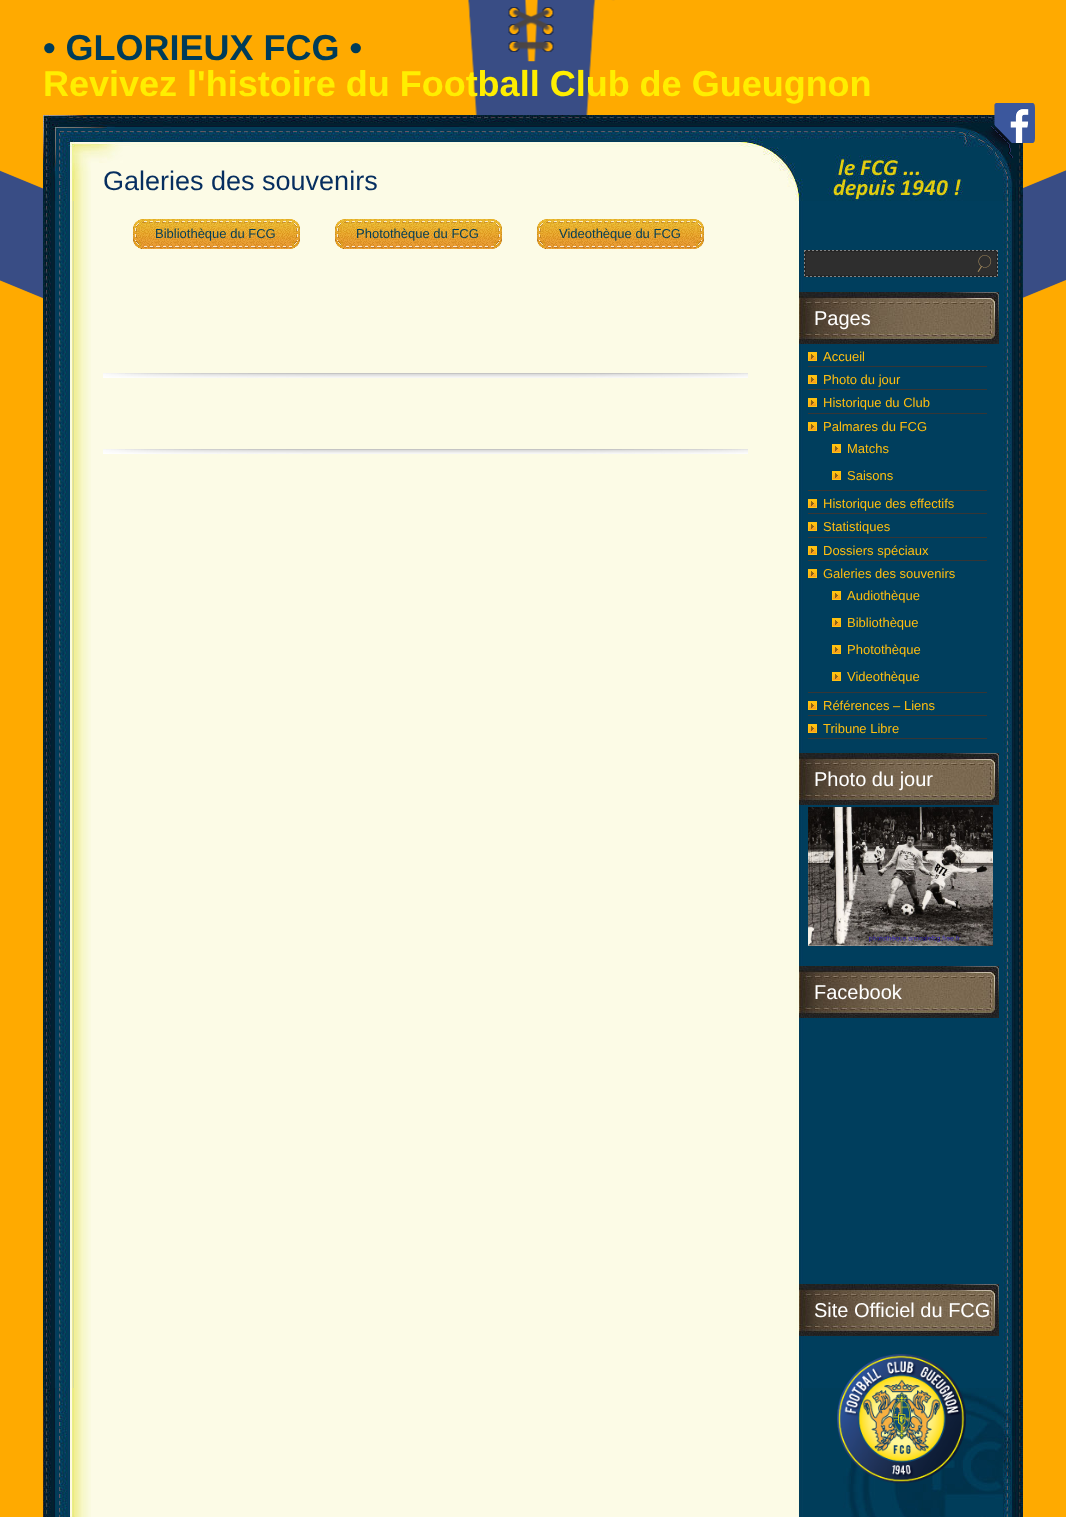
<svg xmlns="http://www.w3.org/2000/svg" width="1066" height="1517" viewBox="0 0 1066 1517">
  <rect width="100%" height="100%" fill="#fa0"/>
  <image x="0" y="0" width="1066" height="299" href="img/1.png"/>
  <image x="43" y="201" width="980" height="1187" href="img/2.png"/>
  <image x="43" y="115" width="980" height="86" href="img/4.png"/>
  <image x="985" y="103" width="50" height="55" href="img/3.png"/>
  <image x="43" y="1388" width="980" height="129" href="img/5.png"/>
  <image x="103" y="449" width="645" height="5" href="img/6.png"/>
  <image x="133" y="219" width="10" height="30" href="img/7.png"/>
  <image x="143" y="219" width="145" height="30" href="img/8.png"/>
  <image x="288" y="219" width="12" height="30" href="img/9.png"/>
  <image x="335" y="219" width="10" height="30" href="img/7.png"/>
  <image x="345" y="219" width="145" height="30" href="img/8.png"/>
  <image x="490" y="219" width="12" height="30" href="img/9.png"/>
  <image x="537" y="219" width="10" height="30" href="img/7.png"/>
  <image x="547" y="219" width="145" height="30" href="img/8.png"/>
  <image x="692" y="219" width="12" height="30" href="img/9.png"/>
  <image x="103" y="373" width="645" height="5" href="img/6.png"/>
  <image x="804" y="250" width="194" height="27" href="img/10.png"/>
  <image x="799" y="292" width="200" height="52" href="img/11.png"/>
  <image x="808" y="352" width="9" height="9" href="img/12.png"/>
  <path d="M808 366h179v1H808z" fill="#363636"/>
  <image x="808" y="375" width="9" height="9" href="img/12.png"/>
  <path d="M808 389h179v1H808z" fill="#363636"/>
  <image x="808" y="398" width="9" height="9" href="img/12.png"/>
  <path d="M808 413h179v1H808z" fill="#363636"/>
  <image x="808" y="422" width="9" height="9" href="img/12.png"/>
  <path d="M808 490h179v1H808z" fill="#363636"/>
  <image x="832" y="444" width="9" height="9" href="img/12.png"/>
  <image x="832" y="471" width="9" height="9" href="img/12.png"/>
  <image x="808" y="499" width="9" height="9" href="img/12.png"/>
  <path d="M808 513h179v1H808z" fill="#363636"/>
  <image x="808" y="522" width="9" height="9" href="img/12.png"/>
  <path d="M808 537h179v1H808z" fill="#363636"/>
  <image x="808" y="546" width="9" height="9" href="img/12.png"/>
  <path d="M808 560h179v1H808z" fill="#363636"/>
  <image x="808" y="569" width="9" height="9" href="img/12.png"/>
  <path d="M808 692h179v1H808z" fill="#363636"/>
  <image x="832" y="591" width="9" height="9" href="img/12.png"/>
  <image x="832" y="618" width="9" height="9" href="img/12.png"/>
  <image x="832" y="645" width="9" height="9" href="img/12.png"/>
  <image x="832" y="672" width="9" height="9" href="img/12.png"/>
  <image x="808" y="701" width="9" height="9" href="img/12.png"/>
  <path d="M808 715h179v1H808z" fill="#363636"/>
  <image x="808" y="724" width="9" height="9" href="img/12.png"/>
  <path d="M808 738h179v1H808z" fill="#363636"/>
  <image x="799" y="753" width="200" height="52" href="img/11.png"/>
  <image x="808" y="807" width="185" height="139" href="img/13.png"/>
  <image x="799" y="966" width="200" height="52" href="img/11.png"/>
  <image x="799" y="1284" width="200" height="52" href="img/11.png"/>
  <image x="837" y="1354" width="129" height="129" href="img/14.png"/>
  <text x="43" y="60" font-family="Liberation Sans" font-size="36" font-weight="bold" fill="#003c59">• GLORIEUX FCG •</text>
  <text x="43" y="96" font-family="Liberation Sans" font-size="36" font-weight="bold" fill="#fe0">Revivez l'histoire du Football Club de Gueugnon</text>
  <text x="103" y="190" font-family="Liberation Sans" font-size="27" fill="#062e5f">Galeries des souvenirs</text>
  <g font-family="Liberation Sans" font-size="13" fill="#003c59">
    <text x="155" y="238">Bibliothèque du FCG</text>
    <text x="356" y="238">Photothèque du FCG</text>
    <text x="559" y="238">Videothèque du FCG</text>
  </g>
  <text x="814" y="325" font-family="Liberation Sans" font-size="20" fill="#fff">Pages</text>
  <g font-family="Liberation Sans" font-size="13" fill="#febe10">
    <text x="823" y="361">Accueil</text>
    <text x="823" y="384">Photo du jour</text>
    <text x="823" y="407">Historique du Club</text>
    <text x="823" y="431">Palmares du FCG</text>
    <text x="847" y="453">Matchs</text>
    <text x="847" y="480">Saisons</text>
    <text x="823" y="508">Historique des effectifs</text>
    <text x="823" y="531">Statistiques</text>
    <text x="823" y="555">Dossiers spéciaux</text>
    <text x="823" y="578">Galeries des souvenirs</text>
    <text x="847" y="600">Audiothèque</text>
    <text x="847" y="627">Bibliothèque</text>
    <text x="847" y="654">Photothèque</text>
    <text x="847" y="681">Videothèque</text>
    <text x="823" y="710">Références – Liens</text>
    <text x="823" y="733">Tribune Libre</text>
  </g>
  <g font-family="Liberation Sans" font-size="20" fill="#fff">
    <text x="814" y="786">Photo du jour</text>
    <text x="814" y="999">Facebook</text>
    <text x="814" y="1317">Site Officiel du FCG</text>
  </g>
</svg>
